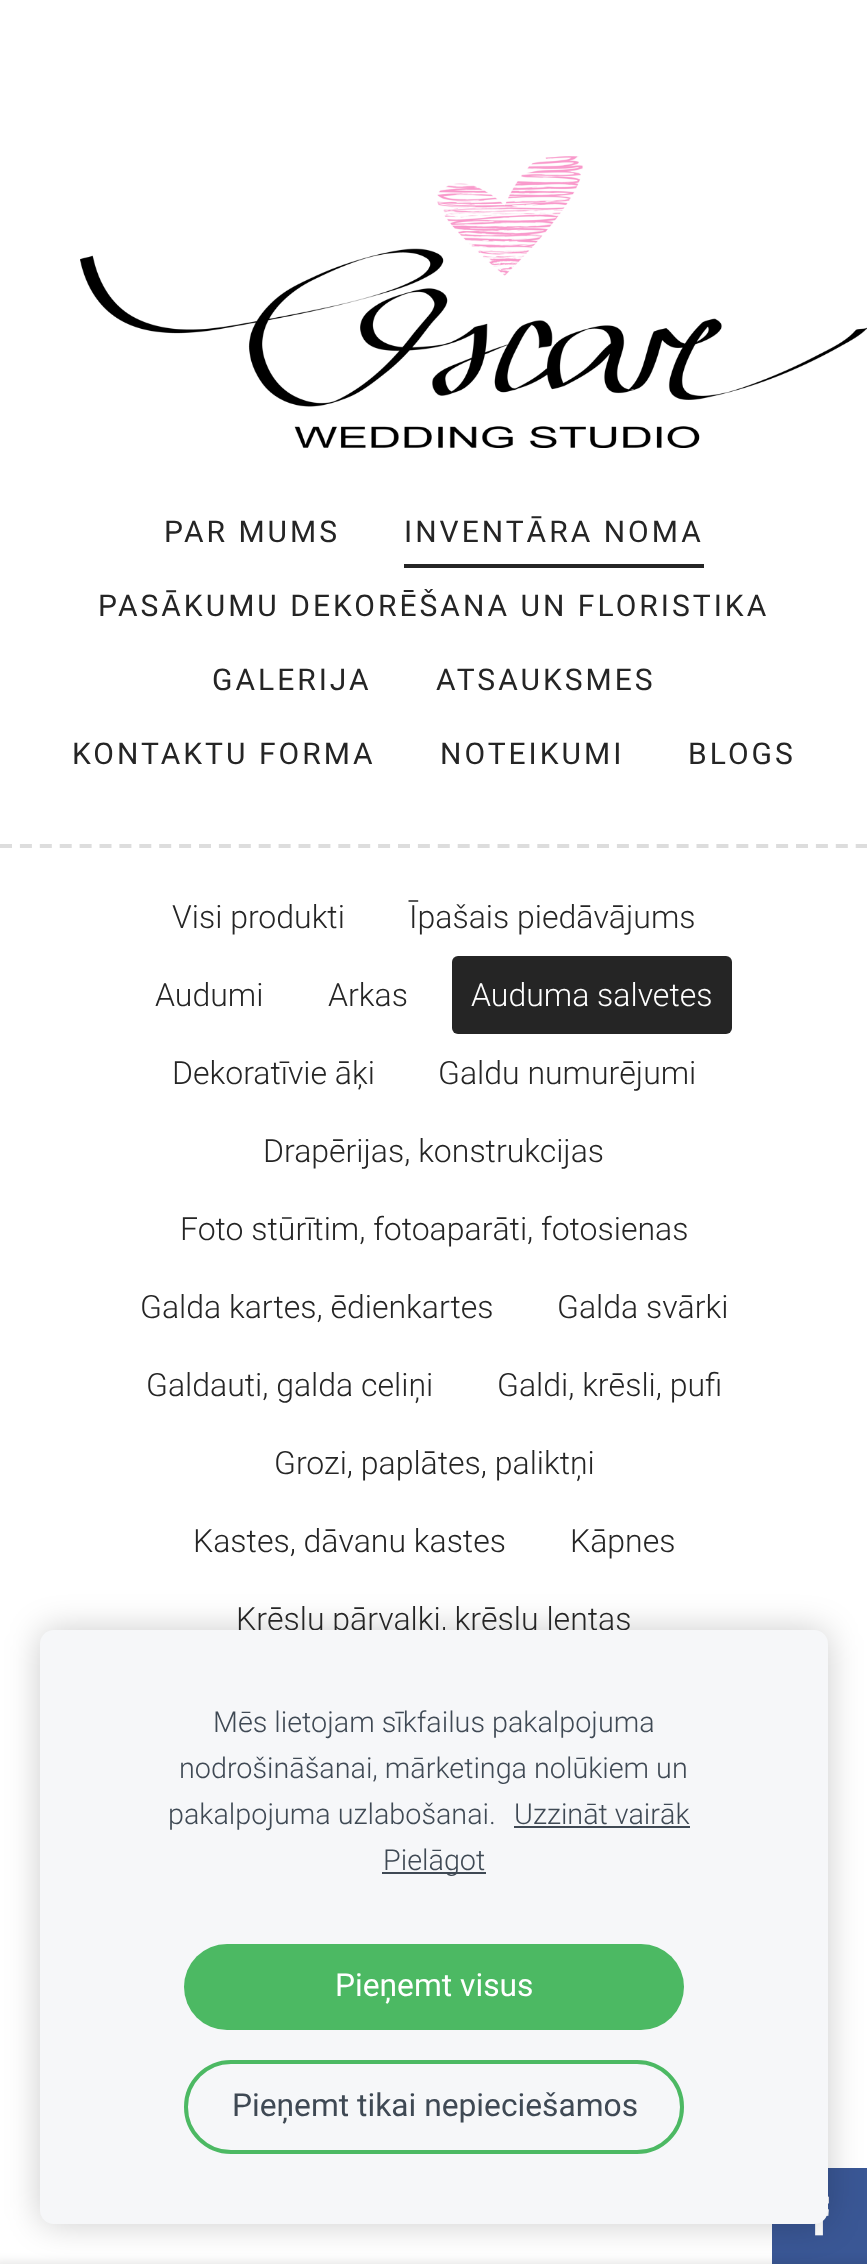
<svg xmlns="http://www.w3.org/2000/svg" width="867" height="2264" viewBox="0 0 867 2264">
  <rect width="100%" height="100%" fill="#fff"/>
  <path d="M0 846H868" fill="none" stroke="#ddd" stroke-width="4" stroke-dasharray="12 7.9"/>
  <image x="80" y="156" width="787" height="292" href="img/1.png"/>
  <path d="M404 564h300v4H404z" fill="#252525"/>
  <rect x="452" y="956" width="280" height="78" rx="6" fill="#252525"/>
  <path d="M772 2168h95v96H772z" fill="#3a5795"/>
  <path d="M-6 2262h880v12H-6z" fill="#0000001a" filter="blur(5px)"/>
  <image x="815" y="2196" width="14" height="40" href="img/2.png"/>
  <rect x="40" y="1630" width="788" height="594" rx="14" fill="#00000033" filter="blur(17px)"/>
  <g font-family="Roboto" font-size="30" letter-spacing="3" fill="#252525">
    <text x="164" y="542">PAR MUMS</text>
    <text x="404" y="542">INVENTĀRA NOMA</text>
    <text x="98" y="616">PASĀKUMU DEKORĒŠANA UN FLORISTIKA</text>
    <text x="212" y="690">GALERIJA</text>
    <text x="436" y="690">ATSAUKSMES</text>
    <text x="72" y="764">KONTAKTU FORMA</text>
    <text x="440" y="764">NOTEIKUMI</text>
    <text x="688" y="764">BLOGS</text>
  </g>
  <g font-family="Roboto" font-size="32" font-weight="300" fill="#252525">
    <text x="172" y="928">Visi produkti</text>
    <text x="409" y="928">Īpašais piedāvājums</text>
    <text x="155" y="1006">Audumi</text>
    <text x="328" y="1006">Arkas</text>
  </g>
  <text x="471" y="1006" font-family="Roboto" font-size="32" font-weight="300" fill="#fff">Auduma salvetes</text>
  <g font-family="Roboto" font-size="32" font-weight="300" fill="#252525">
    <text x="172" y="1084">Dekoratīvie āķi</text>
    <text x="438" y="1084">Galdu numurējumi</text>
    <text x="263" y="1162">Drapērijas, konstrukcijas</text>
    <text x="180" y="1240">Foto stūrītim, fotoaparāti, fotosienas</text>
    <text x="140" y="1318">Galda kartes, ēdienkartes</text>
    <text x="557" y="1318">Galda svārki</text>
    <text x="146" y="1396">Galdauti, galda celiņi</text>
    <text x="497" y="1396">Galdi, krēsli, pufi</text>
    <text x="274" y="1474">Grozi, paplātes, paliktņi</text>
    <text x="193" y="1552">Kastes, dāvanu kastes</text>
    <text x="570" y="1552">Kāpnes</text>
    <text x="236" y="1630">Krēslu pārvalki, krēslu lentas</text>
  </g>
  <rect x="40" y="1630" width="788" height="594" rx="14" fill="#f6f7f9"/>
  <g font-family="Roboto" font-size="28.75" font-weight="300" fill="#3f4954">
    <text x="213" y="1732">Mēs lietojam sīkfailus pakalpojuma</text>
    <text x="179" y="1778">nodrošināšanai, mārketinga nolūkiem un</text>
    <text x="168" y="1824">pakalpojuma uzlabošanai.</text>
    <text x="514" y="1824">Uzzināt vairāk</text>
  </g>
  <path d="M514 1826h176v2H514z" fill="#3f4954"/>
  <path d="M382 1872h104v2H382z" fill="#3f4954"/>
  <text x="383" y="1870" font-family="Roboto" font-size="28.75" font-weight="300" fill="#3f4954">Pielāgot</text>
  <rect x="184" y="1944" width="500" height="86" rx="43" fill="#4cb963"/>
  <text x="335" y="1996" font-family="Roboto" font-size="31.75" fill="#fff">Pieņemt visus</text>
  <rect x="186" y="2062" width="496" height="90" rx="45" fill="none" stroke="#4cb963" stroke-width="4"/>
  <text x="232" y="2116" font-family="Roboto" font-size="31.75" fill="#3f4954">Pieņemt tikai nepieciešamos</text>
</svg>
